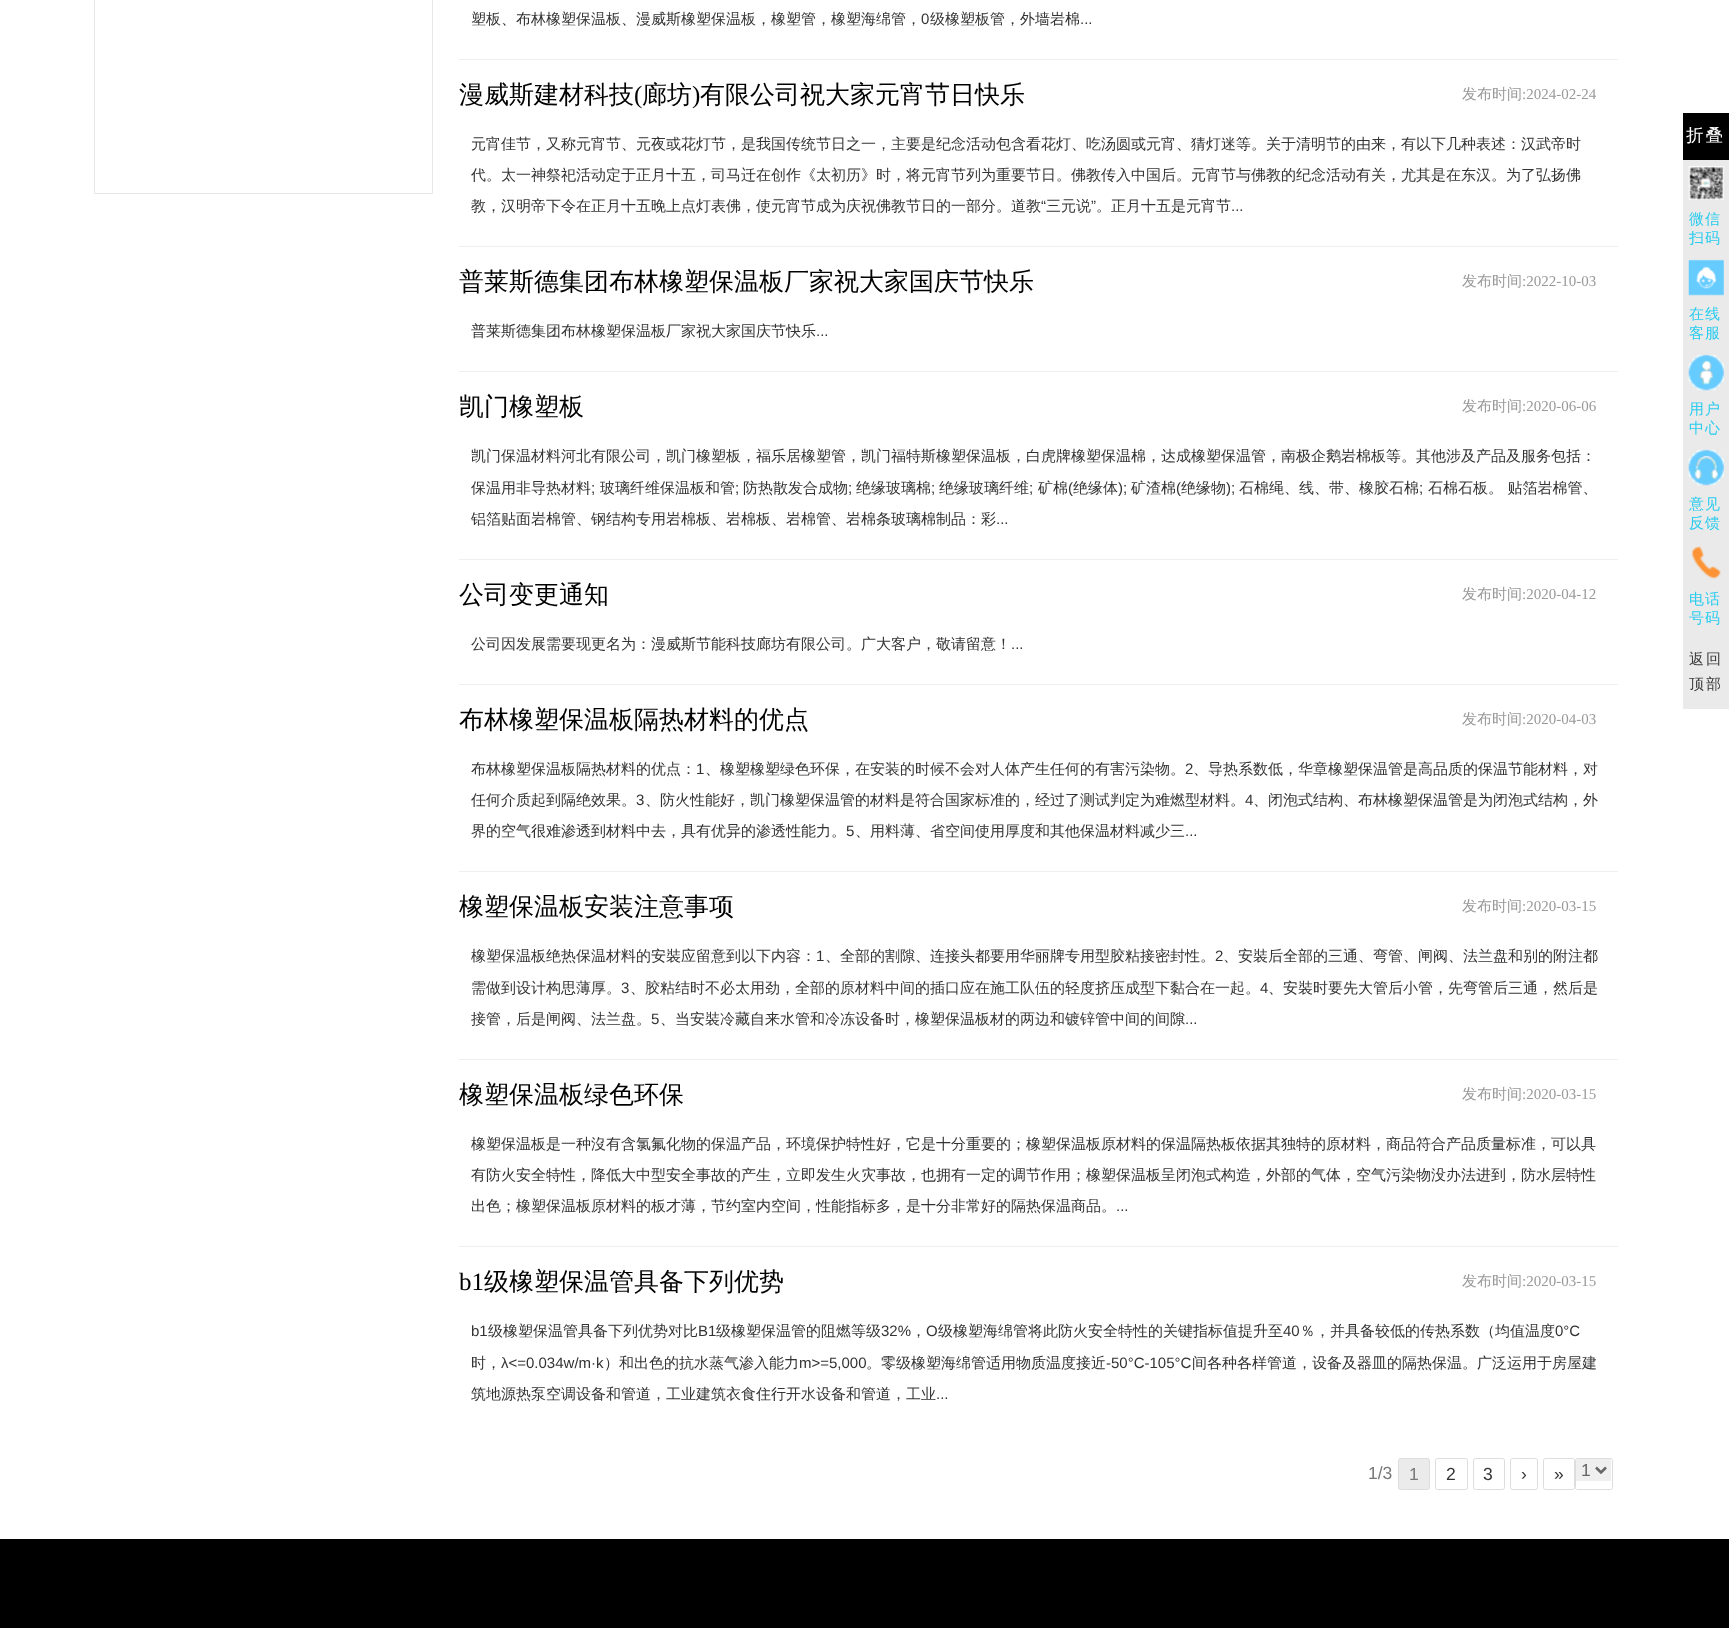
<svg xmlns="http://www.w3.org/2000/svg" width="1729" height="1628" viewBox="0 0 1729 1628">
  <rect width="100%" height="100%" fill="#fff"/>
  <path d="M94.5 -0.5h338v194H94.5z" fill="none" stroke="#e7e7e7"/>
  <path d="M459 59h1159v1H459z" fill="#efefef"/>
  <path d="M459 246h1159v1H459z" fill="#efefef"/>
  <path d="M459 371h1159v1H459z" fill="#efefef"/>
  <path d="M459 559h1159v1H459z" fill="#efefef"/>
  <path d="M459 684h1159v1H459z" fill="#efefef"/>
  <path d="M459 871h1159v1H459z" fill="#efefef"/>
  <path d="M459 1059h1159v1H459z" fill="#efefef"/>
  <path d="M459 1246h1159v1H459z" fill="#efefef"/>
  <rect x="1398.5" y="1458.5" width="31" height="31" rx="2" fill="#ebebeb" stroke="#ddd"/>
  <rect x="1435.5" y="1458.5" width="32" height="31" rx="2" fill="none" stroke="#ddd"/>
  <rect x="1473.5" y="1458.5" width="31" height="31" rx="2" fill="none" stroke="#ddd"/>
  <rect x="1510.5" y="1458.5" width="27" height="31" rx="2" fill="none" stroke="#ddd"/>
  <rect x="1543.5" y="1458.5" width="31" height="31" rx="2" fill="none" stroke="#ddd"/>
  <rect x="1575.5" y="1458.5" width="37" height="31" rx="2" fill="none" stroke="#ddd"/>
  <path d="M1576 1488h1v1H1576z" fill="#fff"/>
  <path d="M1576 1459h35v22H1576z" fill="#efefef"/>
  <path d="M1596 1467.5L1601 1472.5L1606 1467.5" fill="none" stroke="#666" stroke-width="2.5"/>
  <path d="M0 1539h1729v89H0z" fill="#000"/>
  <path d="M1683 160h46v549H1683z" fill="#eaeaea"/>
  <path d="M1683 113h46v47H1683z" fill="#000"/>
  <image x="1688" y="166" width="36" height="34" href="img/1.png"/>
  <image x="1688" y="259" width="36" height="37" href="img/2.png"/>
  <image x="1688" y="354" width="36" height="37" href="img/3.png"/>
  <image x="1688" y="449" width="36" height="37" href="img/4.png"/>
  <image x="1691" y="546" width="30" height="33" href="img/5.png"/>
  <text x="471" y="24" font-family="WenQuanYi Zen Hei" font-size="15" font-weight="500" fill="#333">塑板、布林橡塑保温板、漫威斯橡塑保温板，橡塑管，橡塑海绵管，</text>
  <text x="921" y="24" font-family="Liberation Sans" font-size="15" fill="#333">0</text>
  <text x="930" y="24" font-family="WenQuanYi Zen Hei" font-size="15" font-weight="500" fill="#333">级橡塑板管，外墙岩棉</text>
  <text x="1080" y="24" font-family="Liberation Sans" font-size="15" fill="#333">...</text>
  <text x="459" y="103" font-family="WenQuanYi Zen Hei" font-size="25" font-weight="500" fill="#000">漫威斯建材科技</text>
  <text x="634" y="103" font-family="Liberation Serif" font-size="25" fill="#000">(</text>
  <text x="642" y="103" font-family="WenQuanYi Zen Hei" font-size="25" font-weight="500" fill="#000">廊坊</text>
  <text x="692" y="103" font-family="Liberation Serif" font-size="25" fill="#000">)</text>
  <text x="700" y="103" font-family="WenQuanYi Zen Hei" font-size="25" font-weight="500" fill="#000">有限公司祝大家元宵节日快乐</text>
  <text x="1462" y="99" font-family="WenQuanYi Zen Hei" font-size="15" font-weight="500" fill="#999">发布时间</text>
  <text x="1522" y="99" font-family="Liberation Serif" font-size="15" fill="#999">:2024-02-24</text>
  <g font-family="WenQuanYi Zen Hei" font-size="15" font-weight="500" fill="#333">
    <text x="471" y="149">元宵佳节，又称元宵节、元夜或花灯节，是我国传统节日之一，主要是纪念活动包含看花灯、吃汤圆或元宵、猜灯迷等。关于清明节的由来，有以下几种表述：汉武帝时</text>
    <text x="471" y="180">代。太一神祭祀活动定于正月十五，司马迁在创作《太初历》时，将元宵节列为重要节日。佛教传入中国后。元宵节与佛教的纪念活动有关，尤其是在东汉。为了弘扬佛</text>
    <text x="471" y="211">教，汉明帝下令在正月十五晚上点灯表佛，使元宵节成为庆祝佛教节日的一部分。道教</text>
  </g>
  <text x="1041" y="211" font-family="Liberation Sans" font-size="15" fill="#333">“</text>
  <text x="1046" y="211" font-family="WenQuanYi Zen Hei" font-size="15" font-weight="500" fill="#333">三元说</text>
  <text x="1091" y="211" font-family="Liberation Sans" font-size="15" fill="#333">”</text>
  <text x="1096" y="211" font-family="WenQuanYi Zen Hei" font-size="15" font-weight="500" fill="#333">。正月十五是元宵节</text>
  <text x="1231" y="211" font-family="Liberation Sans" font-size="15" fill="#333">...</text>
  <text x="459" y="290" font-family="WenQuanYi Zen Hei" font-size="25" font-weight="500" fill="#000">普莱斯德集团布林橡塑保温板厂家祝大家国庆节快乐</text>
  <text x="1462" y="286" font-family="WenQuanYi Zen Hei" font-size="15" font-weight="500" fill="#999">发布时间</text>
  <text x="1522" y="286" font-family="Liberation Serif" font-size="15" fill="#999">:2022-10-03</text>
  <text x="471" y="336" font-family="WenQuanYi Zen Hei" font-size="15" font-weight="500" fill="#333">普莱斯德集团布林橡塑保温板厂家祝大家国庆节快乐</text>
  <text x="816" y="336" font-family="Liberation Sans" font-size="15" fill="#333">...</text>
  <text x="459" y="415" font-family="WenQuanYi Zen Hei" font-size="25" font-weight="500" fill="#000">凯门橡塑板</text>
  <text x="1462" y="411" font-family="WenQuanYi Zen Hei" font-size="15" font-weight="500" fill="#999">发布时间</text>
  <text x="1522" y="411" font-family="Liberation Serif" font-size="15" fill="#999">:2020-06-06</text>
  <g font-family="WenQuanYi Zen Hei" font-size="15" font-weight="500" fill="#333">
    <text x="471" y="461">凯门保温材料河北有限公司，凯门橡塑板，福乐居橡塑管，凯门福特斯橡塑保温板，白虎牌橡塑保温棉，达成橡塑保温管，南极企鹅岩棉板等。其他涉及产品及服务包括：</text>
    <text x="471" y="493">保温用非导热材料</text>
  </g>
  <text x="591" y="493" font-family="Liberation Sans" font-size="15" fill="#333">;</text>
  <text x="600" y="493" font-family="WenQuanYi Zen Hei" font-size="15" font-weight="500" fill="#333">玻璃纤维保温板和管</text>
  <text x="735" y="493" font-family="Liberation Sans" font-size="15" fill="#333">;</text>
  <text x="743" y="493" font-family="WenQuanYi Zen Hei" font-size="15" font-weight="500" fill="#333">防热散发合成物</text>
  <text x="848" y="493" font-family="Liberation Sans" font-size="15" fill="#333">;</text>
  <text x="856" y="493" font-family="WenQuanYi Zen Hei" font-size="15" font-weight="500" fill="#333">绝缘玻璃棉</text>
  <text x="931" y="493" font-family="Liberation Sans" font-size="15" fill="#333">;</text>
  <text x="939" y="493" font-family="WenQuanYi Zen Hei" font-size="15" font-weight="500" fill="#333">绝缘玻璃纤维</text>
  <text x="1029" y="493" font-family="Liberation Sans" font-size="15" fill="#333">;</text>
  <text x="1038" y="493" font-family="WenQuanYi Zen Hei" font-size="15" font-weight="500" fill="#333">矿棉</text>
  <text x="1068" y="493" font-family="Liberation Sans" font-size="15" fill="#333">(</text>
  <text x="1073" y="493" font-family="WenQuanYi Zen Hei" font-size="15" font-weight="500" fill="#333">绝缘体</text>
  <text x="1118" y="493" font-family="Liberation Sans" font-size="15" fill="#333">);</text>
  <text x="1131" y="493" font-family="WenQuanYi Zen Hei" font-size="15" font-weight="500" fill="#333">矿渣棉</text>
  <text x="1176" y="493" font-family="Liberation Sans" font-size="15" fill="#333">(</text>
  <text x="1181" y="493" font-family="WenQuanYi Zen Hei" font-size="15" font-weight="500" fill="#333">绝缘物</text>
  <text x="1226" y="493" font-family="Liberation Sans" font-size="15" fill="#333">);</text>
  <text x="1239" y="493" font-family="WenQuanYi Zen Hei" font-size="15" font-weight="500" fill="#333">石棉绳、线、带、橡胶石棉</text>
  <text x="1419" y="493" font-family="Liberation Sans" font-size="15" fill="#333">;</text>
  <g font-family="WenQuanYi Zen Hei" font-size="15" font-weight="500" fill="#333">
    <text x="1428" y="493">石棉石板。 贴箔岩棉管、</text>
    <text x="471" y="524">铝箔贴面岩棉管、钢结构专用岩棉板、岩棉板、岩棉管、岩棉条玻璃棉制品：彩</text>
  </g>
  <text x="996" y="524" font-family="Liberation Sans" font-size="15" fill="#333">...</text>
  <text x="459" y="603" font-family="WenQuanYi Zen Hei" font-size="25" font-weight="500" fill="#000">公司变更通知</text>
  <text x="1462" y="599" font-family="WenQuanYi Zen Hei" font-size="15" font-weight="500" fill="#999">发布时间</text>
  <text x="1522" y="599" font-family="Liberation Serif" font-size="15" fill="#999">:2020-04-12</text>
  <text x="471" y="649" font-family="WenQuanYi Zen Hei" font-size="15" font-weight="500" fill="#333">公司因发展需要现更名为：漫威斯节能科技廊坊有限公司。广大客户，敬请留意！</text>
  <text x="1011" y="649" font-family="Liberation Sans" font-size="15" fill="#333">...</text>
  <text x="459" y="728" font-family="WenQuanYi Zen Hei" font-size="25" font-weight="500" fill="#000">布林橡塑保温板隔热材料的优点</text>
  <text x="1462" y="724" font-family="WenQuanYi Zen Hei" font-size="15" font-weight="500" fill="#999">发布时间</text>
  <text x="1522" y="724" font-family="Liberation Serif" font-size="15" fill="#999">:2020-04-03</text>
  <text x="471" y="774" font-family="WenQuanYi Zen Hei" font-size="15" font-weight="500" fill="#333">布林橡塑保温板隔热材料的优点：</text>
  <text x="696" y="774" font-family="Liberation Sans" font-size="15" fill="#333">1</text>
  <text x="705" y="774" font-family="WenQuanYi Zen Hei" font-size="15" font-weight="500" fill="#333">、橡塑橡塑绿色环保，在安装的时候不会对人体产生任何的有害污染物。</text>
  <text x="1185" y="774" font-family="Liberation Sans" font-size="15" fill="#333">2</text>
  <g font-family="WenQuanYi Zen Hei" font-size="15" font-weight="500" fill="#333">
    <text x="1193" y="774">、导热系数低，华章橡塑保温管是高品质的保温节能材料，对</text>
    <text x="471" y="805">任何介质起到隔绝效果。</text>
  </g>
  <text x="636" y="805" font-family="Liberation Sans" font-size="15" fill="#333">3</text>
  <text x="645" y="805" font-family="WenQuanYi Zen Hei" font-size="15" font-weight="500" fill="#333">、防火性能好，凯门橡塑保温管的材料是符合国家标准的，经过了测试判定为难燃型材料。</text>
  <text x="1245" y="805" font-family="Liberation Sans" font-size="15" fill="#333">4</text>
  <g font-family="WenQuanYi Zen Hei" font-size="15" font-weight="500" fill="#333">
    <text x="1253" y="805">、闭泡式结构、布林橡塑保温管是为闭泡式结构，外</text>
    <text x="471" y="836">界的空气很难渗透到材料中去，具有优异的渗透性能力。</text>
  </g>
  <text x="846" y="836" font-family="Liberation Sans" font-size="15" fill="#333">5</text>
  <text x="855" y="836" font-family="WenQuanYi Zen Hei" font-size="15" font-weight="500" fill="#333">、用料薄、省空间使用厚度和其他保温材料减少三</text>
  <text x="1185" y="836" font-family="Liberation Sans" font-size="15" fill="#333">...</text>
  <text x="459" y="915" font-family="WenQuanYi Zen Hei" font-size="25" font-weight="500" fill="#000">橡塑保温板安装注意事项</text>
  <text x="1462" y="911" font-family="WenQuanYi Zen Hei" font-size="15" font-weight="500" fill="#999">发布时间</text>
  <text x="1522" y="911" font-family="Liberation Serif" font-size="15" fill="#999">:2020-03-15</text>
  <text x="471" y="961" font-family="WenQuanYi Zen Hei" font-size="15" font-weight="500" fill="#333">橡塑保温板绝热保温材料的安裝应留意到以下内容：</text>
  <text x="816" y="961" font-family="Liberation Sans" font-size="15" fill="#333">1</text>
  <text x="825" y="961" font-family="WenQuanYi Zen Hei" font-size="15" font-weight="500" fill="#333">、全部的割隙、连接头都要用华丽牌专用型胶粘接密封性。</text>
  <text x="1215" y="961" font-family="Liberation Sans" font-size="15" fill="#333">2</text>
  <g font-family="WenQuanYi Zen Hei" font-size="15" font-weight="500" fill="#333">
    <text x="1223" y="961">、安裝后全部的三通、弯管、闸阀、法兰盘和别的附注都</text>
    <text x="471" y="993">需做到设计构思薄厚。</text>
  </g>
  <text x="621" y="993" font-family="Liberation Sans" font-size="15" fill="#333">3</text>
  <text x="630" y="993" font-family="WenQuanYi Zen Hei" font-size="15" font-weight="500" fill="#333">、胶粘结时不必太用劲，全部的原材料中间的插口应在施工队伍的轻度挤压成型下黏合在一起。</text>
  <text x="1260" y="993" font-family="Liberation Sans" font-size="15" fill="#333">4</text>
  <g font-family="WenQuanYi Zen Hei" font-size="15" font-weight="500" fill="#333">
    <text x="1268" y="993">、安裝时要先大管后小管，先弯管后三通，然后是</text>
    <text x="471" y="1024">接管，后是闸阀、法兰盘。</text>
  </g>
  <text x="651" y="1024" font-family="Liberation Sans" font-size="15" fill="#333">5</text>
  <text x="660" y="1024" font-family="WenQuanYi Zen Hei" font-size="15" font-weight="500" fill="#333">、当安裝冷藏自来水管和冷冻设备时，橡塑保温板材的两边和镀锌管中间的间隙</text>
  <text x="1185" y="1024" font-family="Liberation Sans" font-size="15" fill="#333">...</text>
  <text x="459" y="1103" font-family="WenQuanYi Zen Hei" font-size="25" font-weight="500" fill="#000">橡塑保温板绿色环保</text>
  <text x="1462" y="1099" font-family="WenQuanYi Zen Hei" font-size="15" font-weight="500" fill="#999">发布时间</text>
  <text x="1522" y="1099" font-family="Liberation Serif" font-size="15" fill="#999">:2020-03-15</text>
  <g font-family="WenQuanYi Zen Hei" font-size="15" font-weight="500" fill="#333">
    <text x="471" y="1149">橡塑保温板是一种沒有含氯氟化物的保温产品，环境保护特性好，它是十分重要的；橡塑保温板原材料的保温隔热板依据其独特的原材料，商品符合产品质量标准，可以具</text>
    <text x="471" y="1180">有防火安全特性，降低大中型安全事故的产生，立即发生火灾事故，也拥有一定的调节作用；橡塑保温板呈闭泡式构造，外部的气体，空气污染物没办法进到，防水层特性</text>
    <text x="471" y="1211">出色；橡塑保温板原材料的板才薄，节约室内空间，性能指标多，是十分非常好的隔热保温商品。</text>
  </g>
  <text x="1116" y="1211" font-family="Liberation Sans" font-size="15" fill="#333">...</text>
  <text x="459" y="1290" font-family="Liberation Serif" font-size="25" fill="#000">b1</text>
  <text x="484" y="1290" font-family="WenQuanYi Zen Hei" font-size="25" font-weight="500" fill="#000">级橡塑保温管具备下列优势</text>
  <text x="1462" y="1286" font-family="WenQuanYi Zen Hei" font-size="15" font-weight="500" fill="#999">发布时间</text>
  <text x="1522" y="1286" font-family="Liberation Serif" font-size="15" fill="#999">:2020-03-15</text>
  <text x="471" y="1336" font-family="Liberation Sans" font-size="15" fill="#333">b1</text>
  <text x="488" y="1336" font-family="WenQuanYi Zen Hei" font-size="15" font-weight="500" fill="#333">级橡塑保温管具备下列优势对比</text>
  <text x="698" y="1336" font-family="Liberation Sans" font-size="15" fill="#333">B1</text>
  <text x="716" y="1336" font-family="WenQuanYi Zen Hei" font-size="15" font-weight="500" fill="#333">级橡塑保温管的阻燃等级</text>
  <text x="881" y="1336" font-family="Liberation Sans" font-size="15" fill="#333">32%</text>
  <text x="911" y="1336" font-family="WenQuanYi Zen Hei" font-size="15" font-weight="500" fill="#333">，</text>
  <text x="926" y="1336" font-family="Liberation Sans" font-size="15" fill="#333">O</text>
  <text x="938" y="1336" font-family="WenQuanYi Zen Hei" font-size="15" font-weight="500" fill="#333">级橡塑海绵管将此防火安全特性的关键指标值提升至</text>
  <text x="1283" y="1336" font-family="Liberation Sans" font-size="15" fill="#333">40</text>
  <text x="1300" y="1336" font-family="WenQuanYi Zen Hei" font-size="15" font-weight="500" fill="#333">％，并具备较低的传热系数（均值温度</text>
  <text x="1555" y="1336" font-family="Liberation Sans" font-size="15" fill="#333">0°C</text>
  <text x="471" y="1368" font-family="WenQuanYi Zen Hei" font-size="15" font-weight="500" fill="#333">时，</text>
  <text x="501" y="1368" font-family="Liberation Sans" font-size="15" fill="#333">λ&lt;=0.034w/m·k</text>
  <text x="604" y="1368" font-family="WenQuanYi Zen Hei" font-size="15" font-weight="500" fill="#333">）和出色的抗水蒸气渗入能力</text>
  <text x="799" y="1368" font-family="Liberation Sans" font-size="15" fill="#333">m&gt;=5,000</text>
  <text x="866" y="1368" font-family="WenQuanYi Zen Hei" font-size="15" font-weight="500" fill="#333">。零级橡塑海绵管适用物质温度接近</text>
  <text x="1106" y="1368" font-family="Liberation Sans" font-size="15" fill="#333">-50°C-105°C</text>
  <g font-family="WenQuanYi Zen Hei" font-size="15" font-weight="500" fill="#333">
    <text x="1192" y="1368">间各种各样管道，设备及器皿的隔热保温。广泛运用于房屋建</text>
    <text x="471" y="1399">筑地源热泵空调设备和管道，工业建筑衣食住行开水设备和管道，工业</text>
  </g>
  <text x="936" y="1399" font-family="Liberation Sans" font-size="15" fill="#333">...</text>
  <g font-family="Liberation Sans" font-size="17.5" fill="#777">
    <text x="1368" y="1479">1/3</text>
    <text x="1409" y="1480">1</text>
  </g>
  <g font-family="Liberation Sans" font-size="17.5" fill="#333">
    <text x="1446" y="1480">2</text>
    <text x="1483" y="1480">3</text>
    <text x="1521" y="1480">›</text>
    <text x="1554" y="1480">»</text>
  </g>
  <text x="1581" y="1476" font-family="Liberation Sans" font-size="17.5" fill="#666">1</text>
  <text x="1686" y="141" font-family="WenQuanYi Zen Hei" font-size="17.5" font-weight="500" letter-spacing="2" fill="#fff">折叠</text>
  <g font-family="WenQuanYi Zen Hei" font-size="15" font-weight="500" letter-spacing="1" fill="#29ccef">
    <text x="1689" y="224">微信</text>
    <text x="1689" y="243">扫码</text>
    <text x="1689" y="319">在线</text>
    <text x="1689" y="338">客服</text>
    <text x="1689" y="414">用户</text>
    <text x="1689" y="433">中心</text>
    <text x="1689" y="509">意见</text>
    <text x="1689" y="528">反馈</text>
    <text x="1689" y="604">电话</text>
    <text x="1689" y="623">号码</text>
  </g>
  <g font-family="WenQuanYi Zen Hei" font-size="15" font-weight="500" letter-spacing="2" fill="#3b3b3b">
    <text x="1689" y="664">返回</text>
    <text x="1689" y="689">顶部</text>
  </g>
</svg>
